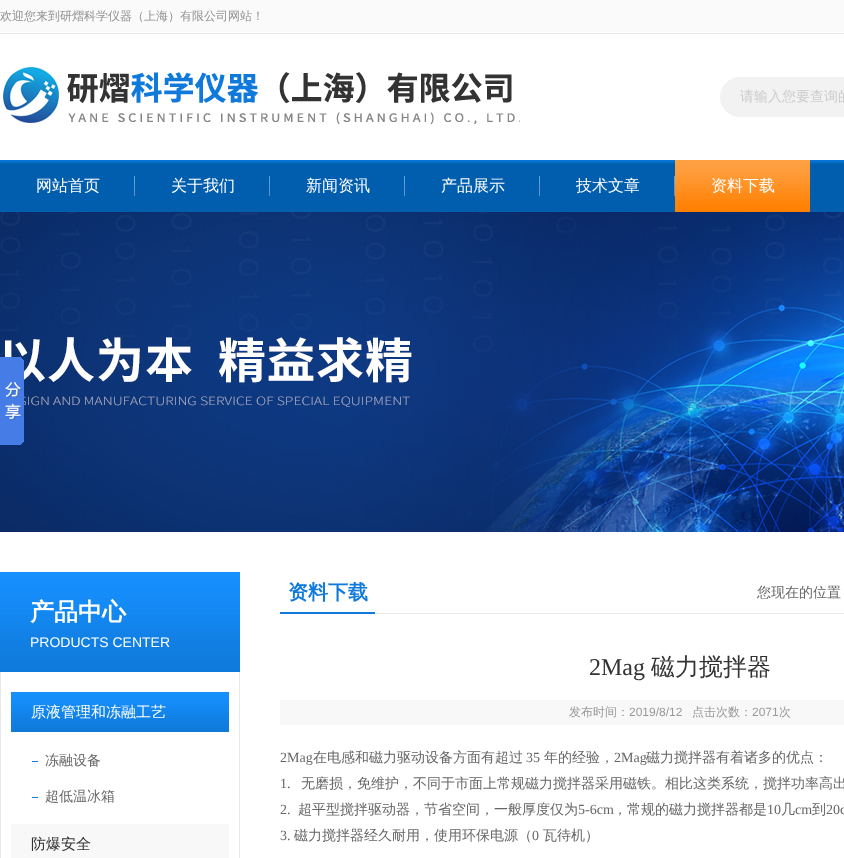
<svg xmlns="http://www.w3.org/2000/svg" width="844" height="858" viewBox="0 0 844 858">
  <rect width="100%" height="100%" fill="#fff"/>
  <image x="0" y="0" width="844" height="34" href="img/1.png"/>
  <image x="3" y="67" width="517" height="58" href="img/2.png"/>
  <path d="M740 77H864V117H740C729 117 720 108 720 97C720 86 729 77 740 77Z" fill="#f2f2f2"/>
  <image x="0" y="160" width="844" height="52" href="img/3.png"/>
  <image x="134" y="176" width="1" height="20" href="img/4.png"/>
  <image x="269" y="176" width="1" height="20" href="img/4.png"/>
  <image x="404" y="176" width="1" height="20" href="img/4.png"/>
  <image x="539" y="176" width="1" height="20" href="img/4.png"/>
  <image x="674" y="176" width="1" height="20" href="img/4.png"/>
  <image x="675" y="160" width="135" height="52" href="img/5.png"/>
  <image x="0" y="212" width="844" height="320" href="img/6.png"/>
  <image x="0" y="357" width="24" height="88" href="img/7.png"/>
  <image x="0" y="572" width="240" height="100" href="img/8.png"/>
  <path d="M239 672h1v186H239z" fill="#eaeaea"/>
  <path d="M0 672h1v186H0z" fill="#eaeaea"/>
  <image x="11" y="692" width="218" height="40" href="img/9.png"/>
  <path d="M32 761h6v1H32z" fill="#0f7adb"/>
  <path d="M32 797h6v1H32z" fill="#0f7adb"/>
  <path d="M11 824h218v34H11z" fill="#f8f8f8"/>
  <path d="M375 613h469v1H375z" fill="#eaeaea"/>
  <path d="M280 612h95v2H280z" fill="#0f7adb"/>
  <path d="M280 700h564v25H280z" fill="#f8f8f8"/>
  <text x="0" y="20" font-family="WenQuanYi Zen Hei" font-size="12" font-weight="500" fill="#929091">欢迎您来到研熠科学仪器（上海）有限公司网站！</text>
  <text x="740" y="101" font-family="WenQuanYi Zen Hei" font-size="14" font-weight="500" fill="#ccc">请输入您要查询的</text>
  <g font-family="WenQuanYi Zen Hei" font-size="16" font-weight="500" fill="#fff">
    <text x="36" y="191">网站首页</text>
    <text x="171" y="191">关于我们</text>
    <text x="306" y="191">新闻资讯</text>
    <text x="441" y="191">产品展示</text>
    <text x="576" y="191">技术文章</text>
    <text x="711" y="191">资料下载</text>
  </g>
  <text x="30" y="620" font-family="WenQuanYi Zen Hei" font-size="24" font-weight="bold" fill="#fff">产品中心</text>
  <text x="30" y="647" font-family="Liberation Sans" font-size="14" fill="#fff">PRODUCTS CENTER</text>
  <text x="31" y="717" font-family="WenQuanYi Zen Hei" font-size="15" font-weight="500" fill="#fff">原液管理和冻融工艺</text>
  <g font-family="WenQuanYi Zen Hei" font-size="14" font-weight="500" fill="#666">
    <text x="45" y="765">冻融设备</text>
    <text x="45" y="801">超低温冰箱</text>
  </g>
  <text x="31" y="849" font-family="WenQuanYi Zen Hei" font-size="15" font-weight="500" fill="#333">防爆安全</text>
  <text x="288" y="599" font-family="WenQuanYi Zen Hei" font-size="20" font-weight="bold" fill="#0f7adb">资料下载</text>
  <text x="757" y="597" font-family="WenQuanYi Zen Hei" font-size="14" font-weight="500" fill="#666">您现在的位置</text>
  <text x="589" y="675" font-family="Liberation Serif" font-size="24" fill="#333">2Mag</text>
  <text x="651" y="675" font-family="WenQuanYi Zen Hei" font-size="24" font-weight="500" fill="#333">磁力搅拌器</text>
  <text x="569" y="716" font-family="WenQuanYi Zen Hei" font-size="12" font-weight="500" fill="#999">发布时间：</text>
  <text x="629" y="716" font-family="Liberation Sans" font-size="12" fill="#999">2019/8/12</text>
  <text x="692" y="716" font-family="WenQuanYi Zen Hei" font-size="12" font-weight="500" fill="#999">点击次数：</text>
  <text x="752" y="716" font-family="Liberation Sans" font-size="12" fill="#999">2071</text>
  <text x="779" y="716" font-family="WenQuanYi Zen Hei" font-size="12" font-weight="500" fill="#999">次</text>
  <text x="280" y="762" font-family="Liberation Serif" font-size="14" fill="#666">2Mag</text>
  <text x="313" y="762" font-family="WenQuanYi Zen Hei" font-size="14" font-weight="500" fill="#666">在电感和磁力驱动设备方面有超过</text>
  <text x="526" y="762" font-family="Liberation Serif" font-size="14" fill="#666">35</text>
  <text x="544" y="762" font-family="WenQuanYi Zen Hei" font-size="14" font-weight="500" fill="#666">年的经验，</text>
  <text x="614" y="762" font-family="Liberation Serif" font-size="14" fill="#666">2Mag</text>
  <text x="646" y="762" font-family="WenQuanYi Zen Hei" font-size="14" font-weight="500" fill="#666">磁力搅拌器有着诸多的优点：</text>
  <text x="280" y="788" font-family="Liberation Serif" font-size="14" fill="#666">1.</text>
  <text x="301" y="788" font-family="WenQuanYi Zen Hei" font-size="14" font-weight="500" fill="#666">无磨损，免维护，不同于市面上常规磁力搅拌器采用磁铁。相比这类系统，搅拌功率高出</text>
  <text x="280" y="814" font-family="Liberation Serif" font-size="14" fill="#666">2.</text>
  <text x="298" y="814" font-family="WenQuanYi Zen Hei" font-size="14" font-weight="500" fill="#666">超平型搅拌驱动器，节省空间，一般厚度仅为</text>
  <text x="578" y="814" font-family="Liberation Serif" font-size="14" fill="#666">5-6cm</text>
  <text x="613" y="814" font-family="WenQuanYi Zen Hei" font-size="14" font-weight="500" fill="#666">，常规的磁力搅拌器都是</text>
  <text x="767" y="814" font-family="Liberation Serif" font-size="14" fill="#666">10</text>
  <text x="781" y="814" font-family="WenQuanYi Zen Hei" font-size="14" font-weight="500" fill="#666">几</text>
  <text x="795" y="814" font-family="Liberation Serif" font-size="14" fill="#666">cm</text>
  <text x="812" y="814" font-family="WenQuanYi Zen Hei" font-size="14" font-weight="500" fill="#666">到</text>
  <g font-family="Liberation Serif" font-size="14" fill="#666">
    <text x="826" y="814">20c</text>
    <text x="280" y="840">3.</text>
  </g>
  <text x="294" y="840" font-family="WenQuanYi Zen Hei" font-size="14" font-weight="500" fill="#666">磁力搅拌器经久耐用，使用环保电源（</text>
  <text x="532" y="840" font-family="Liberation Serif" font-size="14" fill="#666">0</text>
  <text x="543" y="840" font-family="WenQuanYi Zen Hei" font-size="14" font-weight="500" fill="#666">瓦待机）</text>
</svg>
